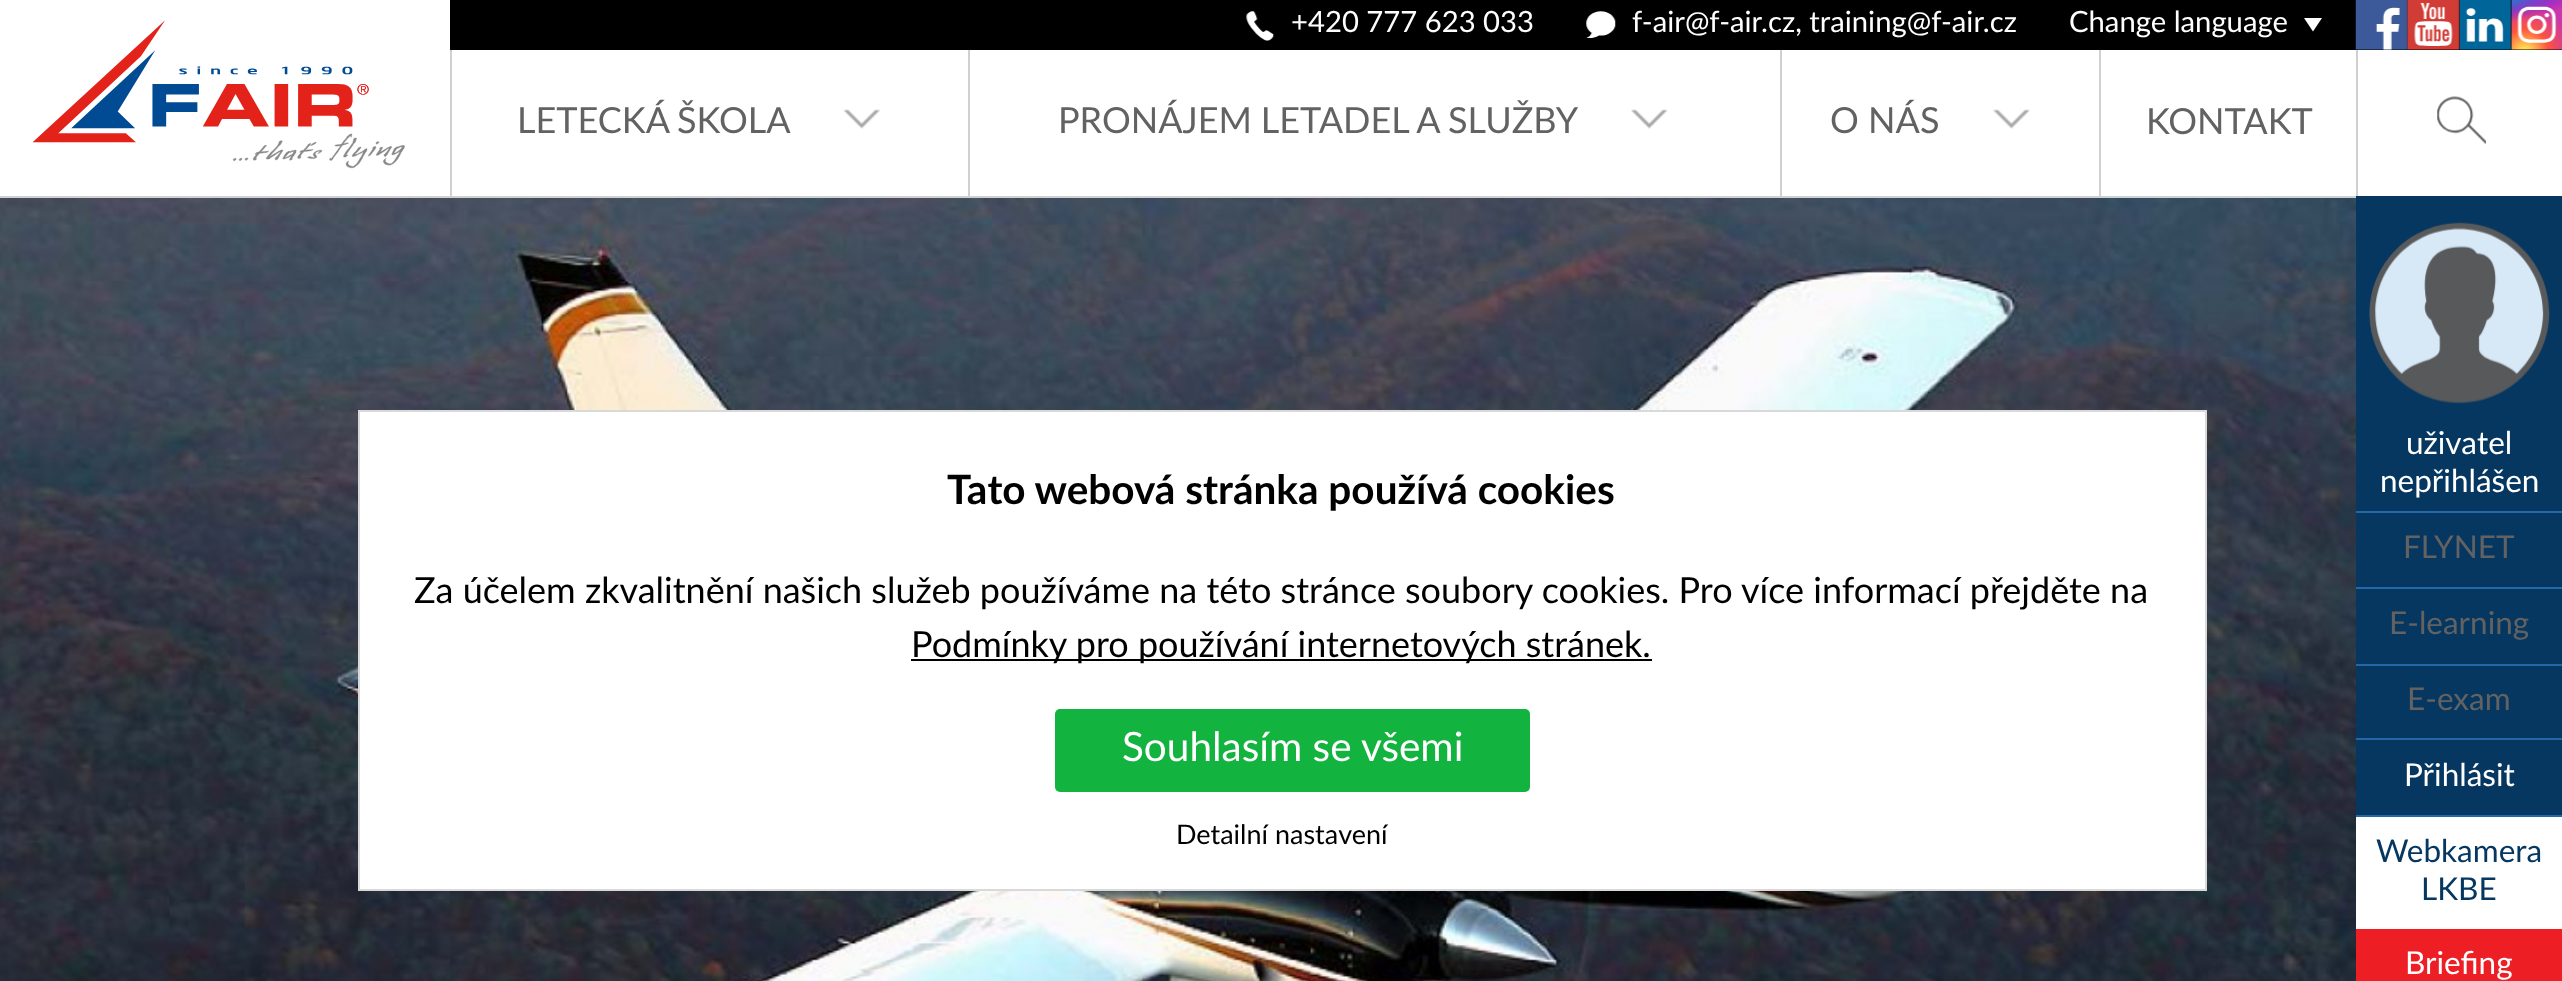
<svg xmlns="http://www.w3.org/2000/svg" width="2562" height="981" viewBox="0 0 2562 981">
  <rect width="100%" height="100%" fill="#fff"/>
  <path d="M0 196h2356v2H0z" fill="#d0d0d0"/>
  <image x="32" y="20" width="373" height="149" href="img/1.png"/>
  <path d="M450 0h2112v50H450z" fill="#000"/>
  <image x="1246" y="11" width="28" height="30" href="img/2.png"/>
  <image x="1586" y="11" width="30" height="27" href="img/3.png"/>
  <path d="M2304 18H2322L2313 31.5Z" fill="#fff"/>
  <image x="2355" y="0" width="53" height="50" href="img/4.png"/>
  <image x="2407" y="0" width="53" height="50" href="img/5.png"/>
  <image x="2459" y="0" width="52" height="50" href="img/6.png"/>
  <image x="2511" y="0" width="51" height="50" href="img/7.png"/>
  <path d="M450 50h2v146H450z" fill="#d0d0d0"/>
  <image x="843" y="109" width="37" height="20" href="img/8.png"/>
  <path d="M968 50h2v146H968z" fill="#d0d0d0"/>
  <image x="1631" y="109" width="37" height="20" href="img/9.png"/>
  <path d="M1780 50h2v146H1780z" fill="#d0d0d0"/>
  <image x="1993" y="109" width="37" height="20" href="img/10.png"/>
  <path d="M2099 50h2v146H2099z" fill="#d0d0d0"/>
  <path d="M2356 50h2v146H2356z" fill="#d0d0d0"/>
  <image x="2437" y="96" width="49" height="48" href="img/11.png"/>
  <image x="0" y="198" width="2356" height="783" href="img/12.png"/>
  <path d="M2356 196h206v315H2356z" fill="#063761"/>
  <image x="2369" y="222" width="181" height="182" href="img/13.png"/>
  <path d="M2356 513h206v74H2356z" fill="#063761"/>
  <path d="M2356 511h206v2H2356z" fill="#2368a6"/>
  <path d="M2356 589h206v75H2356z" fill="#063761"/>
  <path d="M2356 587h206v2H2356z" fill="#2368a6"/>
  <path d="M2356 666h206v72H2356z" fill="#063761"/>
  <path d="M2356 664h206v2H2356z" fill="#2368a6"/>
  <path d="M2356 740h206v75H2356z" fill="#063761"/>
  <path d="M2356 738h206v2H2356z" fill="#2368a6"/>
  <path d="M2356 815h206v2H2356z" fill="#2368a6"/>
  <path d="M2356 929h206v52H2356z" fill="#ed1f24"/>
  <path d="M359 411h1847v479H359z" fill="#fff" stroke="#d9d9d9" stroke-width="2"/>
  <path d="M911 659h741v2H911z" fill="#000"/>
  <rect x="1055" y="709" width="475" height="83" rx="5" fill="#12b33f"/>
  <g font-family="Lato" font-size="29.25" fill="#fff">
    <text x="1291" y="32">+420 777 623 033</text>
    <text x="1632" y="32">f-air@f-air.cz, training@f-air.cz</text>
    <text x="2069" y="32">Change language</text>
  </g>
  <g font-family="Lato" font-size="36" fill="#636262">
    <text x="517" y="133" word-spacing="-1">LETECKÁ ŠKOLA</text>
    <text x="1058" y="133" word-spacing="-0.5">PRONÁJEM LETADEL A SLUŽBY</text>
    <text x="1830" y="133">O NÁS</text>
    <text x="2146" y="134">KONTAKT</text>
  </g>
  <g font-family="Lato" font-size="31.5" fill="#fff">
    <text x="2406" y="454">uživatel</text>
    <text x="2380" y="492">nepřihlášen</text>
  </g>
  <g font-family="Lato" font-size="31.5" fill="#636262">
    <text x="2403" y="558">FLYNET</text>
    <text x="2389" y="634">E-learning</text>
    <text x="2407" y="710">E-exam</text>
  </g>
  <text x="2404" y="786" font-family="Lato" font-size="31.5" fill="#fff">Přihlásit</text>
  <g font-family="Lato" font-size="31.5" fill="#063761">
    <text x="2376" y="862">Webkamera</text>
    <text x="2421" y="900">LKBE</text>
  </g>
  <text x="2405" y="974" font-family="Lato" font-size="31.5" fill="#fff">Briefing</text>
  <text x="947" y="504" font-family="Lato" font-size="40.5" font-weight="bold" fill="#000">Tato webová stránka používá cookies</text>
  <g font-family="Lato" font-size="36" fill="#000">
    <text x="414" y="603">Za účelem zkvalitnění našich služeb používáme na této stránce soubory cookies. Pro více informací přejděte na</text>
    <text x="911" y="657">Podmínky pro používání internetových stránek.</text>
  </g>
  <text x="1122" y="761" font-family="Lato" font-size="40.5" fill="#fff">Souhlasím se všemi</text>
  <text x="1176" y="844" font-family="Lato" font-size="27" fill="#000">Detailní nastavení</text>
</svg>
